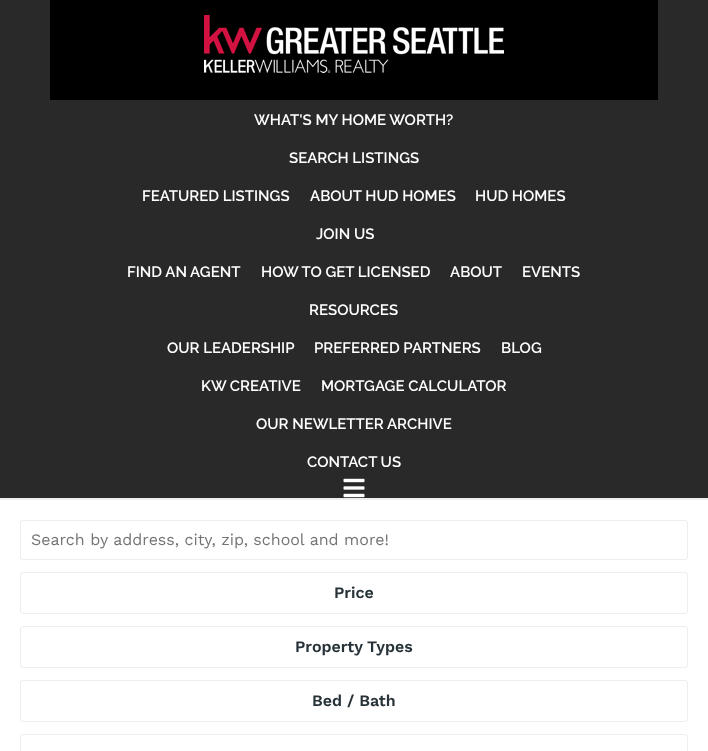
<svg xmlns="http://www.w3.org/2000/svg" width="708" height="751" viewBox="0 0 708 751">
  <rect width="100%" height="100%" fill="#fff"/>
  <path d="M0 0h708v498H0z" fill="#292929"/>
  <path d="M50 0h608v100H50z" fill="#000"/>
  <image x="204" y="15" width="300" height="58" href="img/1.png"/>
  <image x="343" y="478" width="22" height="20" href="img/2.png"/>
  <path d="M0 498h708v2H0z" fill="#eceff1"/>
  <rect x="20.5" y="520.5" width="667" height="39" rx="2.5" fill="none" stroke="#eceff1"/>
  <rect x="20.5" y="572.5" width="667" height="41" rx="2.5" fill="none" stroke="#eceff1"/>
  <rect x="20.5" y="626.5" width="667" height="41" rx="2.5" fill="none" stroke="#eceff1"/>
  <rect x="20.5" y="680.5" width="667" height="41" rx="2.5" fill="none" stroke="#eceff1"/>
  <rect x="20.5" y="734.5" width="667" height="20" rx="2.5" fill="none" stroke="#eceff1"/>
  <g font-family="Raleway" font-size="15" font-weight="600" fill="#fff">
    <text x="254" y="125">WHAT'S MY HOME WORTH?</text>
    <text x="289" y="163">SEARCH LISTINGS</text>
    <text x="142" y="201">FEATURED LISTINGS</text>
    <text x="310" y="201">ABOUT HUD HOMES</text>
    <text x="475" y="201">HUD HOMES</text>
    <text x="127" y="277">FIND AN AGENT</text>
    <text x="316" y="239">JOIN US</text>
    <text x="261" y="277">HOW TO GET LICENSED</text>
    <text x="450" y="277">ABOUT</text>
    <text x="522" y="277">EVENTS</text>
    <text x="309" y="315">RESOURCES</text>
    <text x="167" y="353">OUR LEADERSHIP</text>
    <text x="314" y="353">PREFERRED PARTNERS</text>
    <text x="501" y="353">BLOG</text>
    <text x="201" y="391">KW CREATIVE</text>
    <text x="321" y="391">MORTGAGE CALCULATOR</text>
    <text x="256" y="429">OUR NEWLETTER ARCHIVE</text>
    <text x="307" y="467">CONTACT US</text>
  </g>
  <text x="31" y="545" font-family="Work Sans" font-size="16" fill="#757575">Search by address, city, zip, school and more!</text>
  <g font-family="Work Sans" font-size="16" font-weight="600" fill="#263238">
    <text x="334" y="598">Price</text>
    <text x="295" y="652">Property Types</text>
    <text x="312" y="706">Bed / Bath</text>
  </g>
</svg>
